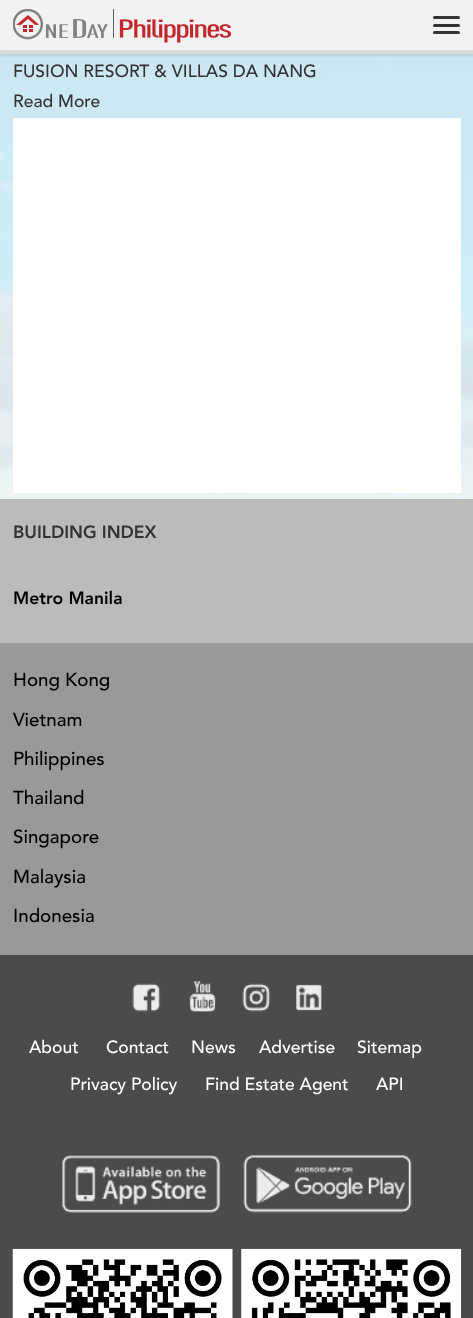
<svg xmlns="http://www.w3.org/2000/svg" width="473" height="1318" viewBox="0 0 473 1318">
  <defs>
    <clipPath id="clip1"><path d="M13 668h448v275H13z"/></clipPath>
  </defs>
  <rect width="100%" height="100%" fill="#fff"/>
  <image x="0" y="54" width="473" height="445" href="img/2.png"/>
  <path d="M0 54h473v445H0z" fill="#ffffffcc"/>
  <path d="M0 3h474v53H0z" fill="#0000001a" filter="blur(1px)"/>
  <path d="M0 0h473v50H0z" fill="#f2f2f2"/>
  <path d="M0 50h473v4H0z" fill="#dadada"/>
  <image x="13" y="9" width="218" height="34" href="img/1.png"/>
  <rect x="433" y="16" width="27" height="3" rx="1.5" fill="#333"/>
  <rect x="433" y="24" width="27" height="3" rx="1.5" fill="#333"/>
  <rect x="433" y="31" width="27" height="3" rx="1.5" fill="#333"/>
  <path d="M13 118h448v375H13z" fill="#fff"/>
  <path d="M0 499h473v144H0z" fill="#bbb"/>
  <path d="M0 643h473v312H0z" fill="#999"/>
  <path d="M0 955h473v363H0z" fill="#4b4b4b"/>
  <image x="132" y="983" width="29" height="29" href="img/3.png"/>
  <image x="189" y="981" width="27" height="31" href="img/4.png"/>
  <image x="242" y="983" width="29" height="29" href="img/5.png"/>
  <image x="296" y="984" width="26" height="27" href="img/6.png"/>
  <image x="62" y="1155" width="159" height="58" href="img/7.png"/>
  <image x="243" y="1154" width="169" height="59" href="img/8.png"/>
  <image x="12" y="1248" width="221" height="70" href="img/9.png"/>
  <image x="241" y="1248" width="221" height="70" href="img/10.png"/>
  <g font-family="Avenir" font-size="17.5" font-weight="500" fill="#333">
    <text x="13" y="77">FUSION RESORT &amp; VILLAS DA NANG</text>
    <text x="13" y="107">Read More</text>
  </g>
  <text x="13" y="538" font-family="Avenir" font-size="17.5" font-weight="900" fill="#333">BUILDING INDEX</text>
  <text x="13" y="604" font-family="Avenir" font-size="17.5" font-weight="900" fill="#000">Metro Manila</text>
  <g font-family="Avenir" font-size="18.75" font-weight="500" fill="#000">
    <text x="13" y="686">Hong Kong</text>
    <text x="13" y="726">Vietnam</text>
    <text x="13" y="765">Philippines</text>
  </g>
  <g clip-path="url(#clip1)">
    <text x="13" y="804" font-family="Avenir" font-size="18.75" font-weight="500" fill="#000">Thailand</text>
  </g>
  <g font-family="Avenir" font-size="18.75" font-weight="500" fill="#000">
    <text x="13" y="843">Singapore</text>
    <text x="13" y="883">Malaysia</text>
    <text x="13" y="922">Indonesia</text>
  </g>
  <g font-family="Avenir" font-size="17.5" font-weight="500" fill="#fff">
    <text x="29" y="1053">About</text>
    <text x="106" y="1053">Contact</text>
    <text x="191" y="1053">News</text>
    <text x="259" y="1053">Advertise</text>
    <text x="357" y="1053">Sitemap</text>
    <text x="70" y="1090">Privacy Policy</text>
    <text x="205" y="1090">Find Estate Agent</text>
    <text x="376" y="1090">API</text>
  </g>
</svg>
